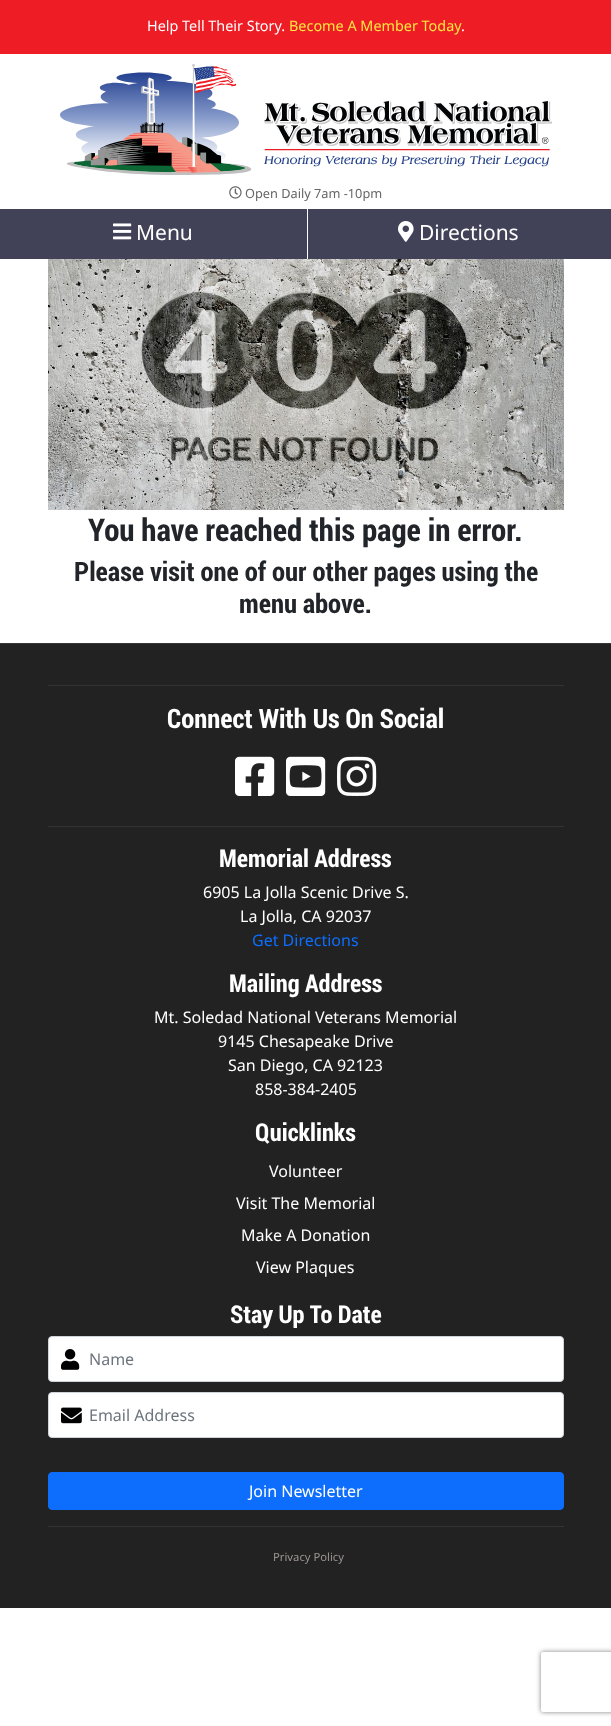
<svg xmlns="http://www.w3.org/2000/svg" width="611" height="1726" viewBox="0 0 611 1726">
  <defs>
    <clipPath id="clip1"><path d="M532 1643H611V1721H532ZM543 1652H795C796 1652 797 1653 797 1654V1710C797 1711 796 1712 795 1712H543C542 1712 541 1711 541 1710V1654C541 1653 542 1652 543 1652Z" clip-rule="evenodd"/></clipPath>
  </defs>
  <rect width="100%" height="100%" fill="#fff"/>
  <path d="M0 0h611v54H0z" fill="#ed1c25"/>
  <image x="60" y="64" width="492" height="111" href="img/1.png"/>
  <image x="229" y="186" width="13" height="13" href="img/2.png"/>
  <path d="M0 209h611v50H0z" fill="#414258"/>
  <image x="113" y="223" width="19" height="17" href="img/3.png"/>
  <path d="M307 209h1v50H307z" fill="#fff"/>
  <image x="398" y="221" width="16" height="21" href="img/4.png"/>
  <image x="48" y="259" width="516" height="251" href="img/5.png"/>
  <path d="M0 644h611v964H0z" fill="#222"/>
  <path d="M0 643h611v1H0z" fill="#383737"/>
  <path d="M48 685h516v1H48z" fill="#333"/>
  <image x="235" y="756" width="40" height="40" href="img/6.png"/>
  <image x="286" y="756" width="40" height="40" href="img/7.png"/>
  <image x="337" y="756" width="40" height="40" href="img/8.png"/>
  <path d="M48 826h516v1H48z" fill="#333"/>
  <rect x="48.5" y="1336.5" width="515" height="45" rx="3.5" fill="#fff" stroke="#ced4da"/>
  <image x="61" y="1349" width="19" height="21" href="img/9.png"/>
  <rect x="48.5" y="1392.5" width="515" height="45" rx="3.5" fill="#fff" stroke="#ced4da"/>
  <image x="61" y="1407" width="21" height="17" href="img/10.png"/>
  <rect x="48.5" y="1472.5" width="515" height="37" rx="3.5" fill="#0d6efd" stroke="#0d6efd"/>
  <path d="M48 1526h516v1H48z" fill="#333"/>
  <g clip-path="url(#clip1)">
    <rect x="541" y="1652" width="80" height="60" rx="2" fill="#808080" filter="blur(2.5px)"/>
  </g>
  <text x="147" y="31" font-family="Noto Sans" font-size="14.4" fill="#fff">Help Tell Their Story.</text>
  <text x="289" y="31" font-family="Noto Sans" font-size="14.4" fill="#ffe740">Become A Member Today</text>
  <text x="461" y="31" font-family="Noto Sans" font-size="14.4" fill="#fff">.</text>
  <text x="245" y="198" font-family="Noto Sans" font-size="12.75" fill="#666">Open Daily 7am -10pm</text>
  <g font-family="Noto Sans" font-size="21" fill="#fff">
    <text x="136" y="240">Menu</text>
    <text x="419" y="240">Directions</text>
  </g>
  <text x="88" y="541" font-family="Roboto Condensed" font-size="31.2" font-weight="bold" fill="#212529">You have reached this page in error.</text>
  <g font-family="Roboto Condensed" font-size="26.75" font-weight="bold" fill="#212529">
    <text x="74" y="581">Please visit one of our other pages using the</text>
    <text x="239" y="613">menu above.</text>
  </g>
  <text x="167" y="728" font-family="Roboto Condensed" font-size="26.75" font-weight="bold" fill="#fff">Connect With Us On Social</text>
  <text x="219" y="867" font-family="Roboto Condensed" font-size="24.5" font-weight="bold" fill="#fff">Memorial Address</text>
  <g font-family="Noto Sans" font-size="16" fill="#fff">
    <text x="203" y="898">6905 La Jolla Scenic Drive S.</text>
    <text x="240" y="922">La Jolla, CA 92037</text>
  </g>
  <text x="252" y="946" font-family="Noto Sans" font-size="16" fill="#0d6efd">Get Directions</text>
  <text x="229" y="992" font-family="Roboto Condensed" font-size="24.5" font-weight="bold" fill="#fff">Mailing Address</text>
  <g font-family="Noto Sans" font-size="16" fill="#fff">
    <text x="154" y="1023">Mt. Soledad National Veterans Memorial</text>
    <text x="218" y="1047">9145 Chesapeake Drive</text>
    <text x="228" y="1071">San Diego, CA 92123</text>
    <text x="255" y="1095">858-384-2405</text>
  </g>
  <text x="255" y="1141" font-family="Roboto Condensed" font-size="24.5" font-weight="bold" fill="#fff">Quicklinks</text>
  <g font-family="Noto Sans" font-size="16" fill="#fff">
    <text x="269" y="1177">Volunteer</text>
    <text x="236" y="1209">Visit The Memorial</text>
    <text x="241" y="1241">Make A Donation</text>
    <text x="256" y="1273">View Plaques</text>
  </g>
  <text x="230" y="1323" font-family="Roboto Condensed" font-size="24.5" font-weight="bold" fill="#fff">Stay Up To Date</text>
  <g font-family="Noto Sans" font-size="16" fill="#6c757d">
    <text x="89" y="1365">Name</text>
    <text x="89" y="1421">Email Address</text>
  </g>
  <text x="249" y="1497" font-family="Noto Sans" font-size="16" fill="#fff">Join Newsletter</text>
  <text x="273" y="1561" font-family="Noto Sans" font-size="11.25" fill="#9c9393">Privacy Policy</text>
</svg>
